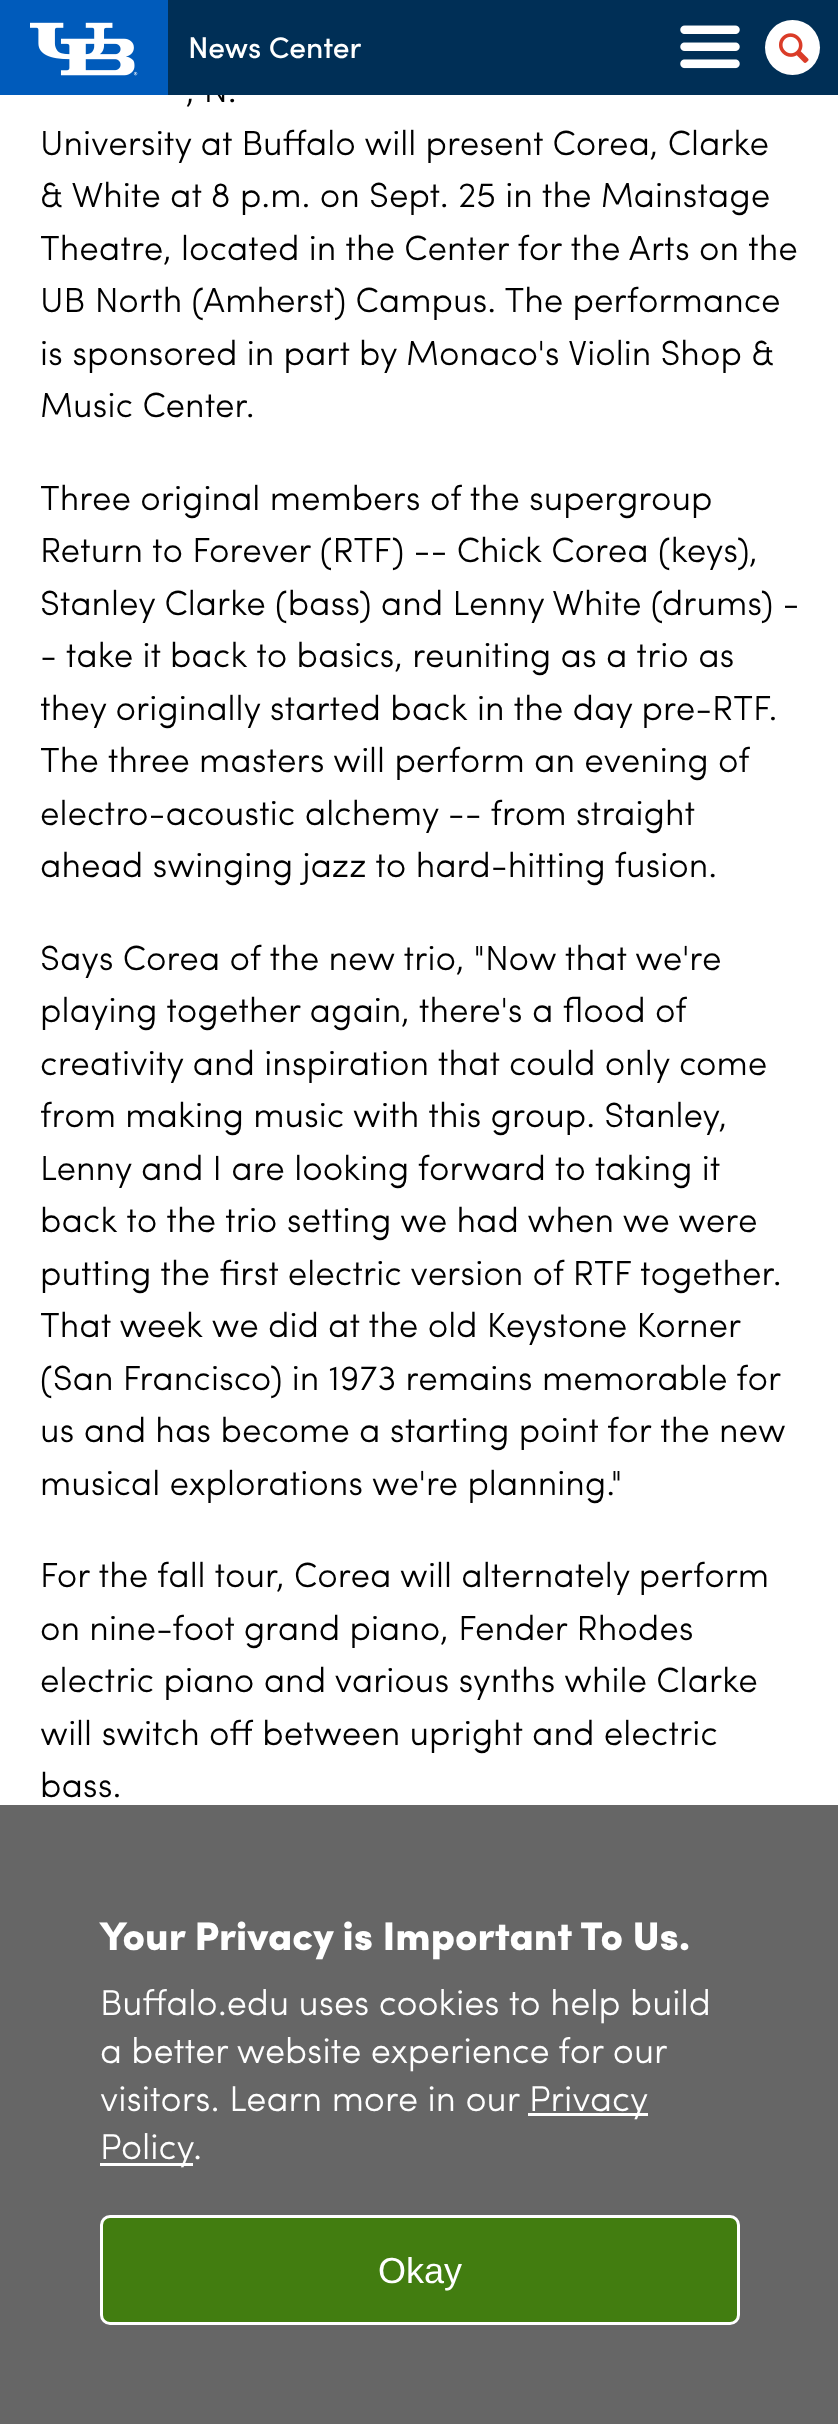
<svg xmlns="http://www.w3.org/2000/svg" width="838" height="2424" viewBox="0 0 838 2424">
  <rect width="100%" height="100%" fill="#fff"/>
  <path d="M0 0h168v95H0z" fill="#005bbb"/>
  <image x="30" y="22" width="108" height="54" href="img/1.png"/>
  <path d="M0 1805h838v619H0z" fill="#666"/>
  <path d="M528 2113h120v3H528z" fill="#fff"/>
  <path d="M100 2163h93v3H100z" fill="#fff"/>
  <rect x="101.5" y="2216.5" width="637" height="107" rx="8.5" fill="#427d10" stroke="#fff" stroke-width="3"/>
  <text x="186" y="102" font-family="Sofia" font-size="35" fill="#000">, N.</text>
  <path d="M168 0h670v95H168z" fill="#002f56"/>
  <circle cx="792.5" cy="47.5" r="27.5" fill="#fff"/>
  <image x="779" y="33" width="30" height="30" href="img/3.png"/>
  <image x="680" y="25" width="60" height="44" href="img/2.png"/>
  <text x="188" y="58" font-family="Sofia" font-size="30" font-weight="500" fill="#fff">News Center</text>
  <g font-family="Sofia" font-size="35" fill="#000">
    <text x="40" y="155">University at Buffalo will present Corea, Clarke</text>
    <text x="40" y="207">&amp; White at 8 p.m. on Sept. 25 in the Mainstage</text>
    <text x="40" y="260">Theatre, located in the Center for the Arts on the</text>
    <text x="40" y="312">UB North (Amherst) Campus. The performance</text>
    <text x="40" y="365">is sponsored in part by Monaco's Violin Shop &amp;</text>
    <text x="40" y="417">Music Center.</text>
    <text x="40" y="510">Three original members of the supergroup</text>
    <text x="40" y="562">Return to Forever (RTF) -- Chick Corea (keys),</text>
    <text x="40" y="615">Stanley Clarke (bass) and Lenny White (drums) -</text>
    <text x="40" y="667">- take it back to basics, reuniting as a trio as</text>
    <text x="40" y="720">they originally started back in the day pre-RTF.</text>
    <text x="40" y="772">The three masters will perform an evening of</text>
    <text x="40" y="825">electro-acoustic alchemy -- from straight</text>
    <text x="40" y="877">ahead swinging jazz to hard-hitting fusion.</text>
    <text x="40" y="970">Says Corea of the new trio, "Now that we're</text>
    <text x="40" y="1022">playing together again, there's a flood of</text>
    <text x="40" y="1075">creativity and inspiration that could only come</text>
    <text x="40" y="1127">from making music with this group. Stanley,</text>
    <text x="40" y="1180">Lenny and I are looking forward to taking it</text>
    <text x="40" y="1232">back to the trio setting we had when we were</text>
    <text x="40" y="1285">putting the first electric version of RTF together.</text>
    <text x="40" y="1337">That week we did at the old Keystone Korner</text>
    <text x="40" y="1390">(San Francisco) in 1973 remains memorable for</text>
    <text x="40" y="1442">us and has become a starting point for the new</text>
    <text x="40" y="1495">musical explorations we're planning."</text>
    <text x="40" y="1587">For the fall tour, Corea will alternately perform</text>
    <text x="40" y="1640">on nine-foot grand piano, Fender Rhodes</text>
    <text x="40" y="1692">electric piano and various synths while Clarke</text>
    <text x="40" y="1745">will switch off between upright and electric</text>
    <text x="40" y="1797">bass.</text>
  </g>
  <text x="100" y="1950" font-family="'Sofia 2'" font-size="40" fill="#fff">Your Privacy is Important To Us.</text>
  <g font-family="Sofia" font-size="36" fill="#fff">
    <text x="100" y="2015">Buffalo.edu uses cookies to help build</text>
    <text x="100" y="2063" word-spacing="-0.25">a better website experience for our</text>
    <text x="100" y="2111">visitors. Learn more in our</text>
    <text x="529" y="2111">Privacy</text>
    <text x="100" y="2159">Policy</text>
    <text x="193" y="2159">.</text>
  </g>
  <text x="378" y="2283" font-family="Liberation Sans" font-size="36" fill="#fff">Okay</text>
</svg>
